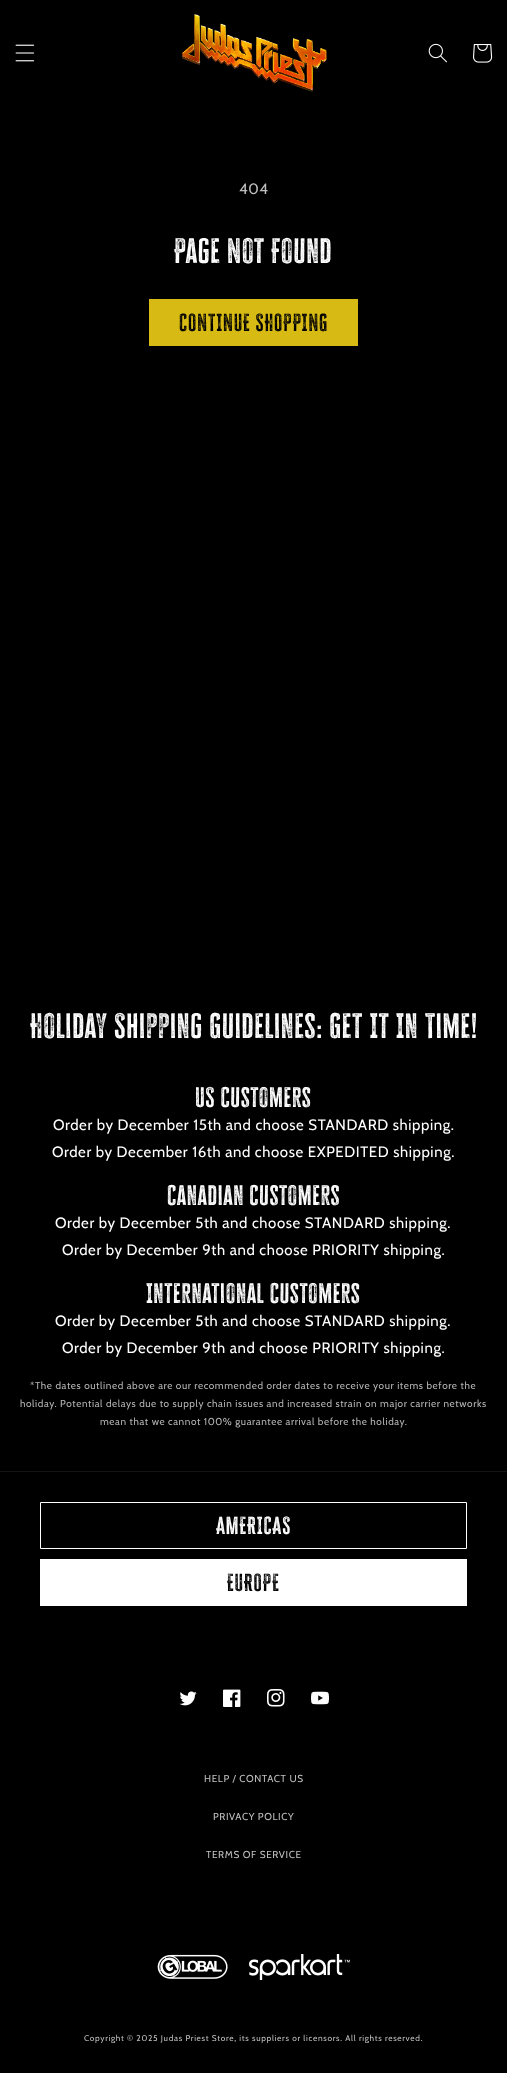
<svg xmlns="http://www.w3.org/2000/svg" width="507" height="2073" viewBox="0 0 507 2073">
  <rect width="100%" height="100%" fill="#000"/>
  <image x="15" y="44" width="20" height="18" href="img/1.png"/>
  <image x="181" y="14" width="146" height="78" href="img/2.png"/>
  <image x="428" y="43" width="19" height="20" href="img/3.png"/>
  <image x="473" y="44" width="20" height="19" href="img/4.png"/>
  <path d="M149 299h209v47H149z" fill="#d7ba14"/>
  <path d="M0 1471h507v1H0z" fill="#141414"/>
  <path d="M40.5 1502.5h426v46H40.5z" fill="none" stroke="#fff"/>
  <path d="M40 1559h427v47H40z" fill="#fff"/>
  <image x="179" y="1691" width="18" height="15" href="img/5.png"/>
  <image x="223" y="1689" width="18" height="18" href="img/6.png"/>
  <image x="267" y="1689" width="18" height="18" href="img/7.png"/>
  <image x="311" y="1691" width="18" height="14" href="img/8.png"/>
  <image x="157" y="1954" width="71" height="25" href="img/9.png"/>
  <image x="249" y="1954" width="101" height="26" href="img/10.png"/>
  <text x="239" y="194" font-family="Cabin" font-size="15" letter-spacing="0.6" fill="#bfbfbf">404</text>
  <text x="174" y="263" font-family="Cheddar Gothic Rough" font-size="28.75" letter-spacing="0.7" fill="#fff">Page Not Found</text>
  <text x="179" y="331" font-family="Cheddar Gothic Rough" font-size="20" letter-spacing="1" fill="#000">CONTINUE SHOPPING</text>
  <text x="30" y="1038" font-family="Cheddar Gothic Rough" font-size="28.75" letter-spacing="0.7" fill="#fff">Holiday Shipping Guidelines: Get It In Time!</text>
  <text x="195" y="1107" font-family="Cheddar Gothic Rough" font-size="23" letter-spacing="0.7" fill="#fff">US Customers</text>
  <g font-family="Cabin" font-size="15" letter-spacing="0.6" fill="#fff">
    <text x="53" y="1130">Order by December 15th and choose STANDARD shipping.</text>
    <text x="52" y="1157">Order by December 16th and choose EXPEDITED shipping.</text>
  </g>
  <text x="167" y="1205" font-family="Cheddar Gothic Rough" font-size="23" letter-spacing="0.7" fill="#fff">Canadian Customers</text>
  <g font-family="Cabin" font-size="15" letter-spacing="0.6" fill="#fff">
    <text x="55" y="1228">Order by December 5th and choose STANDARD shipping.</text>
    <text x="62" y="1255">Order by December 9th and choose PRIORITY shipping.</text>
  </g>
  <text x="146" y="1303" font-family="Cheddar Gothic Rough" font-size="23" letter-spacing="0.7" fill="#fff">International Customers</text>
  <g font-family="Cabin" font-size="15" letter-spacing="0.6" fill="#fff">
    <text x="55" y="1326">Order by December 5th and choose STANDARD shipping.</text>
    <text x="62" y="1353">Order by December 9th and choose PRIORITY shipping.</text>
  </g>
  <g font-family="Cabin" font-size="10" letter-spacing="0.6" fill="#b3b3b3">
    <text x="30" y="1389">*The dates outlined above are our recommended order dates to receive your items before the</text>
    <text x="20" y="1407">holiday. Potential delays due to supply chain issues and increased strain on major carrier networks</text>
    <text x="100" y="1425">mean that we cannot 100% guarantee arrival before the holiday.</text>
  </g>
  <text x="216" y="1534" font-family="Cheddar Gothic Rough" font-size="20" letter-spacing="1" fill="#fff">AMERICAS</text>
  <text x="227" y="1591" font-family="Cheddar Gothic Rough" font-size="20" letter-spacing="1" fill="#000">EUROPE</text>
  <g font-family="Cabin" font-size="10" letter-spacing="0.6" fill="#bfbfbf">
    <text x="204" y="1782">HELP / CONTACT US</text>
    <text x="213" y="1820">PRIVACY POLICY</text>
    <text x="206" y="1858">TERMS OF SERVICE</text>
  </g>
  <text x="84" y="2041" font-family="Cabin" font-size="8.35" letter-spacing="0.7" fill="#bfbfbf">Copyright © 2025 Judas Priest Store, its suppliers or licensors. All rights reserved.</text>
</svg>
